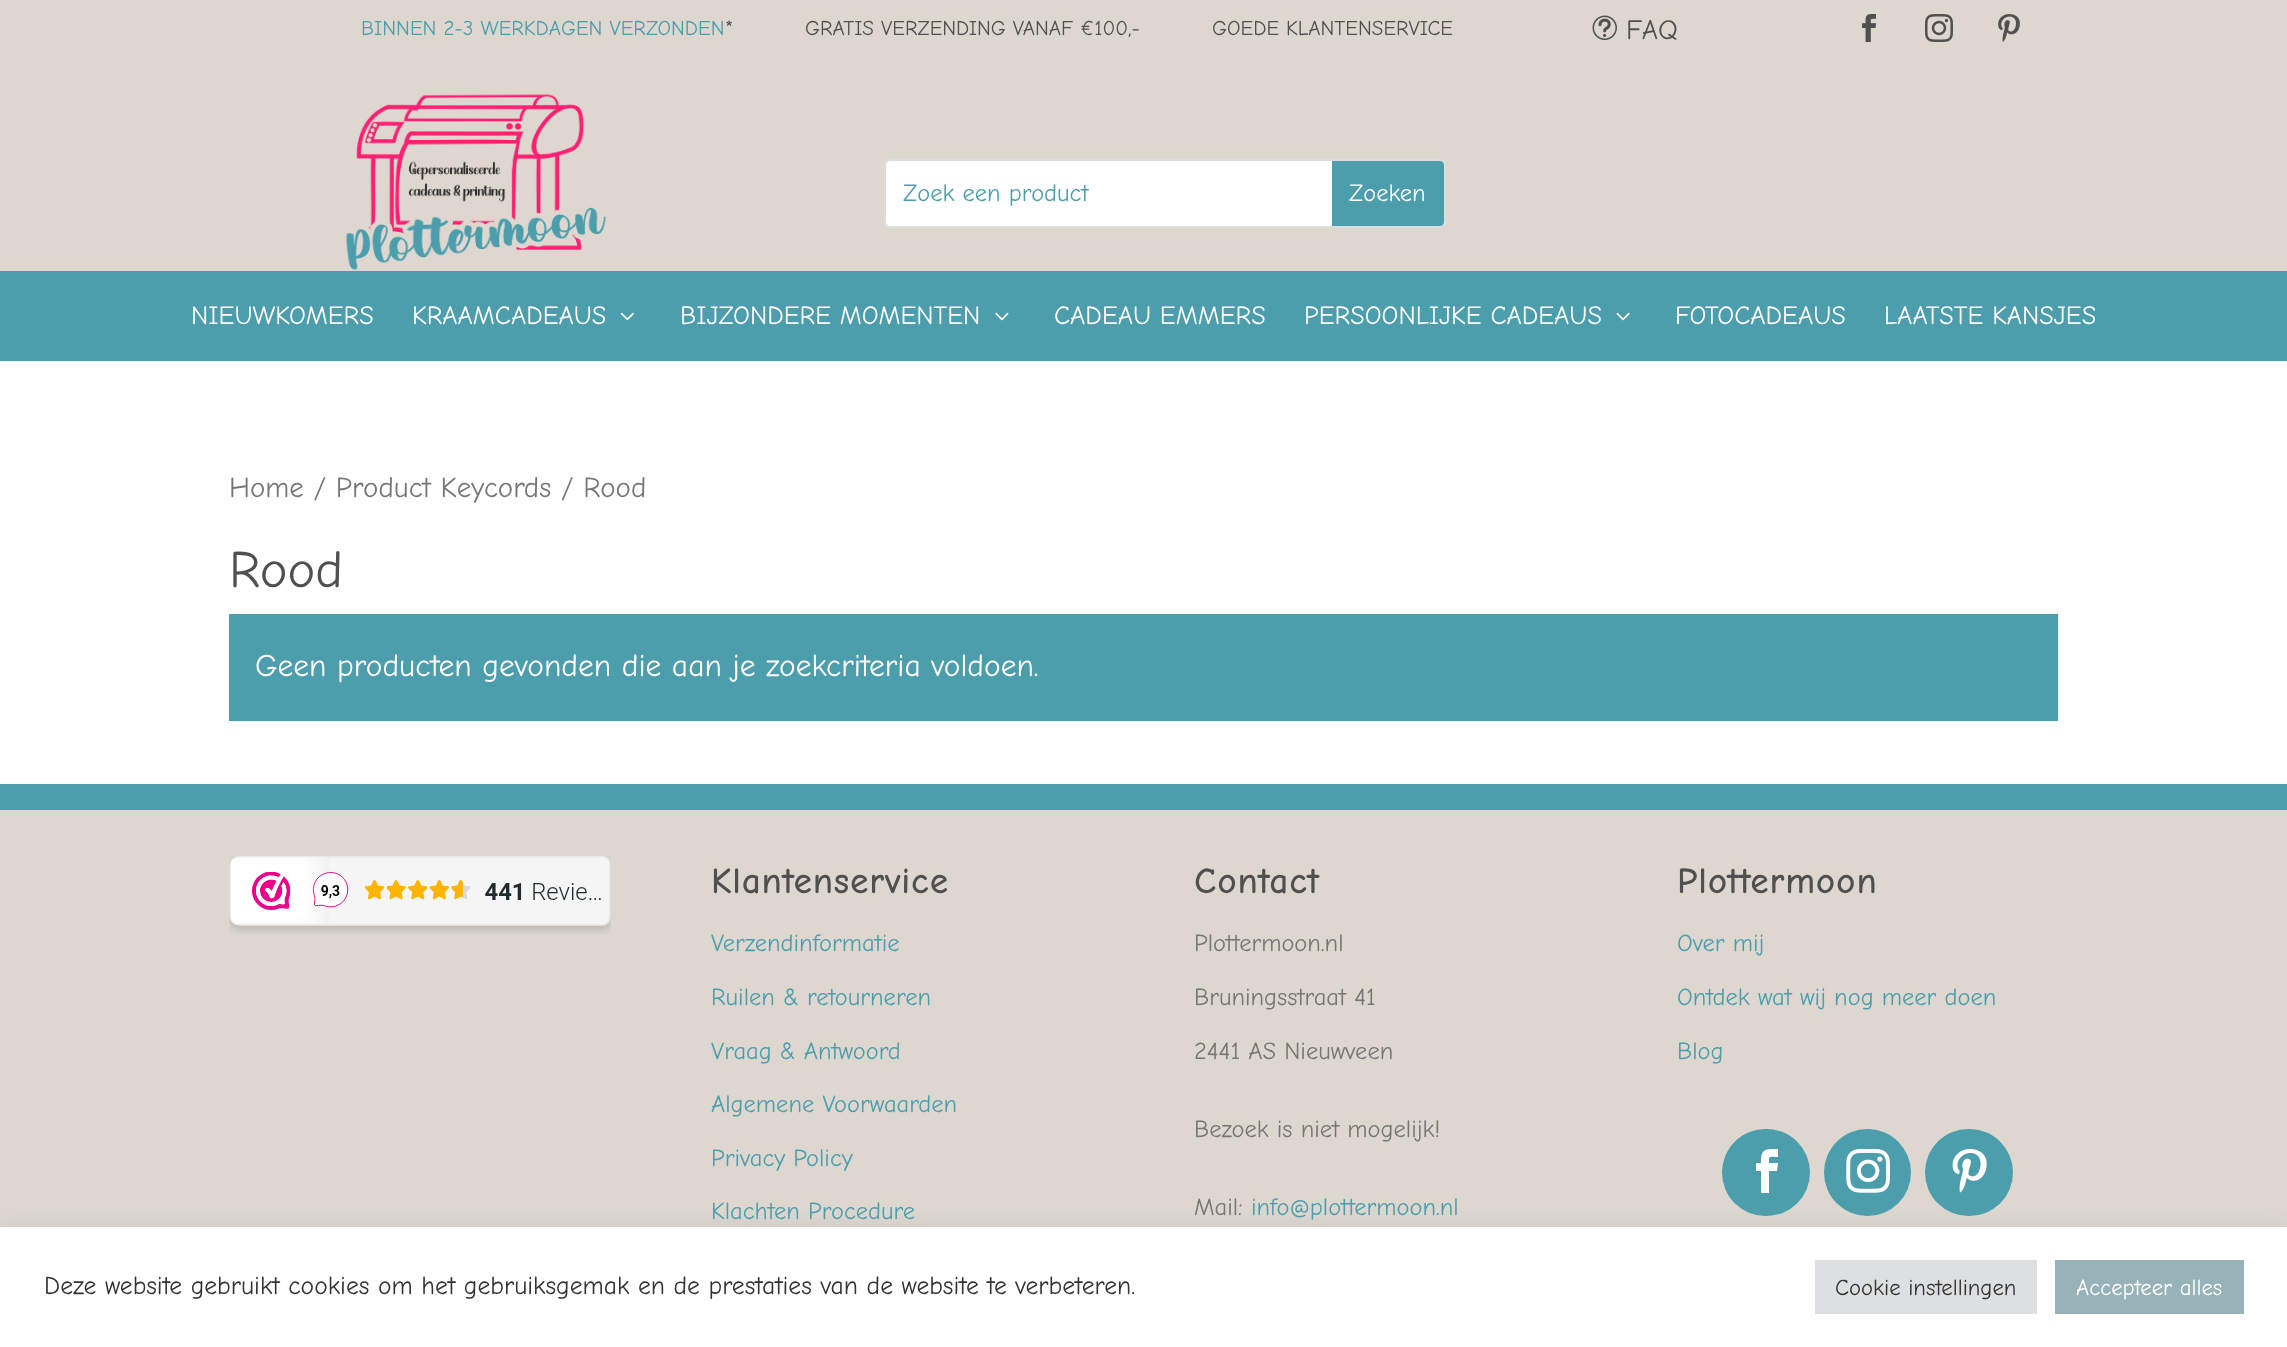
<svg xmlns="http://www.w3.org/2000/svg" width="2287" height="1347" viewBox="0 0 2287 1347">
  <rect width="100%" height="100%" fill="#fff"/>
  <path d="M0 0h2287v271H0z" fill="#ddd7d0"/>
  <image x="1592" y="15" width="25" height="25" href="img/1.png"/>
  <image x="1862" y="14" width="15" height="28" href="img/2.png"/>
  <image x="1925" y="14" width="28" height="28" href="img/3.png"/>
  <image x="1998" y="14" width="22" height="28" href="img/4.png"/>
  <image x="346" y="94" width="260" height="176" href="img/5.png"/>
  <rect x="885" y="160" width="560" height="67" rx="4" fill="none" stroke="#ddd" stroke-width="2"/>
  <path d="M890 161H1332V226H890C888 226 886 224 886 222V165C886 163 888 161 890 161Z" fill="#fff"/>
  <path d="M1332 161H1440C1442 161 1444 163 1444 165V222C1444 224 1442 226 1440 226H1332Z" fill="#4d9eac"/>
  <path d="M0 271h2287v90H0z" fill="#4d9eac"/>
  <image x="620" y="312" width="14" height="9" href="img/6.png"/>
  <image x="995" y="312" width="14" height="9" href="img/7.png"/>
  <image x="1616" y="312" width="14" height="9" href="img/8.png"/>
  <path d="M229 614h1829v107H229z" fill="#4d9eac"/>
  <path d="M0 810h2287v417H0z" fill="#ddd7d0"/>
  <path d="M0 784h2287v26H0z" fill="#4d9eac"/>
  <image x="229" y="856" width="382" height="78" href="img/9.png"/>
  <rect x="1722" y="1129" width="88" height="87" rx="43.5" fill="#4d9eac"/>
  <path d="M1761 1193H1769V1171H1777L1778 1163H1769C1769 1155 1769 1157 1778 1157V1149C1764 1149 1761 1149 1761 1163H1756V1171H1761Z" fill="#fff"/>
  <circle cx="1867.5" cy="1172.5" r="43.5" fill="#4d9eac"/>
  <image x="1846" y="1149" width="44" height="44" href="img/10.png"/>
  <rect x="1925" y="1129" width="88" height="87" rx="43.5" fill="#4d9eac"/>
  <image x="1952" y="1149" width="35" height="44" href="img/11.png"/>
  <path d="M0 1225h2287v121H0z" fill="#acabab4d" filter="blur(9px)"/>
  <path d="M0 1227h2287v120H0z" fill="#fff"/>
  <path d="M1815 1260h222v54H1815z" fill="#dedfe0"/>
  <path d="M2055 1260h189v54H2055z" fill="#97b2b8"/>
  <text x="361" y="35" font-family="Comic Neue" font-size="21" fill="#4d9eac">BINNEN 2-3 WERKDAGEN VERZONDEN</text>
  <g font-family="Comic Neue" font-size="21" fill="#505050">
    <text x="725" y="35">*</text>
    <text x="805" y="35">GRATIS VERZENDING VANAF €100,-</text>
    <text x="1212" y="35">GOEDE KLANTENSERVICE</text>
  </g>
  <text x="1626" y="39" font-family="Comic Neue" font-size="28" fill="#505050">FAQ</text>
  <text x="903" y="201" font-family="Comic Neue" font-size="24.5" fill="#4d9eac">Zoek een product</text>
  <text x="1349" y="201" font-family="Comic Neue" font-size="24.5" fill="#fff">Zoeken</text>
  <g font-family="Comic Neue" font-size="26.25" fill="#fff">
    <text x="191" y="324">NIEUWKOMERS</text>
    <text x="412" y="324">KRAAMCADEAUS</text>
    <text x="680" y="324">BIJZONDERE MOMENTEN</text>
    <text x="1054" y="324">CADEAU EMMERS</text>
    <text x="1304" y="324">PERSOONLIJKE CADEAUS</text>
    <text x="1675" y="324">FOTOCADEAUS</text>
    <text x="1884" y="324">LAATSTE KANSJES</text>
  </g>
  <text x="229" y="497" font-family="Comic Neue" font-size="29" fill="#767676">Home / Product Keycords / Rood</text>
  <text x="229" y="587" font-family="Comic Neue" font-size="52.5" fill="#505050">Rood</text>
  <text x="255" y="676" font-family="Comic Neue" font-size="31.5" fill="#fff">Geen producten gevonden die aan je zoekcriteria voldoen.</text>
  <text x="711" y="893" font-family="Comic Neue" font-size="35" font-weight="bold" letter-spacing="1.75" fill="#505050">Klantenservice</text>
  <g font-family="Comic Neue" font-size="24.5" fill="#4d9eac">
    <text x="711" y="951">Verzendinformatie</text>
    <text x="711" y="1005">Ruilen &amp; retourneren</text>
    <text x="711" y="1059">Vraag &amp; Antwoord</text>
    <text x="711" y="1112">Algemene Voorwaarden</text>
    <text x="711" y="1166">Privacy Policy</text>
    <text x="711" y="1219">Klachten Procedure</text>
  </g>
  <text x="1194" y="893" font-family="Comic Neue" font-size="35" font-weight="bold" letter-spacing="1.75" fill="#505050">Contact</text>
  <g font-family="Comic Neue" font-size="24.5" fill="#767676">
    <text x="1194" y="951">Plottermoon.nl</text>
    <text x="1194" y="1005">Bruningsstraat 41</text>
    <text x="1194" y="1059">2441 AS Nieuwveen</text>
    <text x="1194" y="1137">Bezoek is niet mogelijk!</text>
    <text x="1194" y="1215">Mail:</text>
  </g>
  <text x="1251" y="1215" font-family="Comic Neue" font-size="24.5" fill="#4d9eac">info@plottermoon.nl</text>
  <text x="1677" y="893" font-family="Comic Neue" font-size="35" font-weight="bold" letter-spacing="1.75" fill="#505050">Plottermoon</text>
  <g font-family="Comic Neue" font-size="24.5" fill="#4d9eac">
    <text x="1677" y="951">Over mij</text>
    <text x="1677" y="1005">Ontdek wat wij nog meer doen</text>
    <text x="1677" y="1059">Blog</text>
  </g>
  <text x="44" y="1294" font-family="Comic Neue" font-size="25.65" fill="#333">Deze website gebruikt cookies om het gebruiksgemak en de prestaties van de website te verbeteren.</text>
  <text x="1835" y="1295" font-family="Comic Neue" font-size="22.75" fill="#333">Cookie instellingen</text>
  <text x="2076" y="1295" font-family="Comic Neue" font-size="22.75" fill="#fff">Accepteer alles</text>
</svg>
